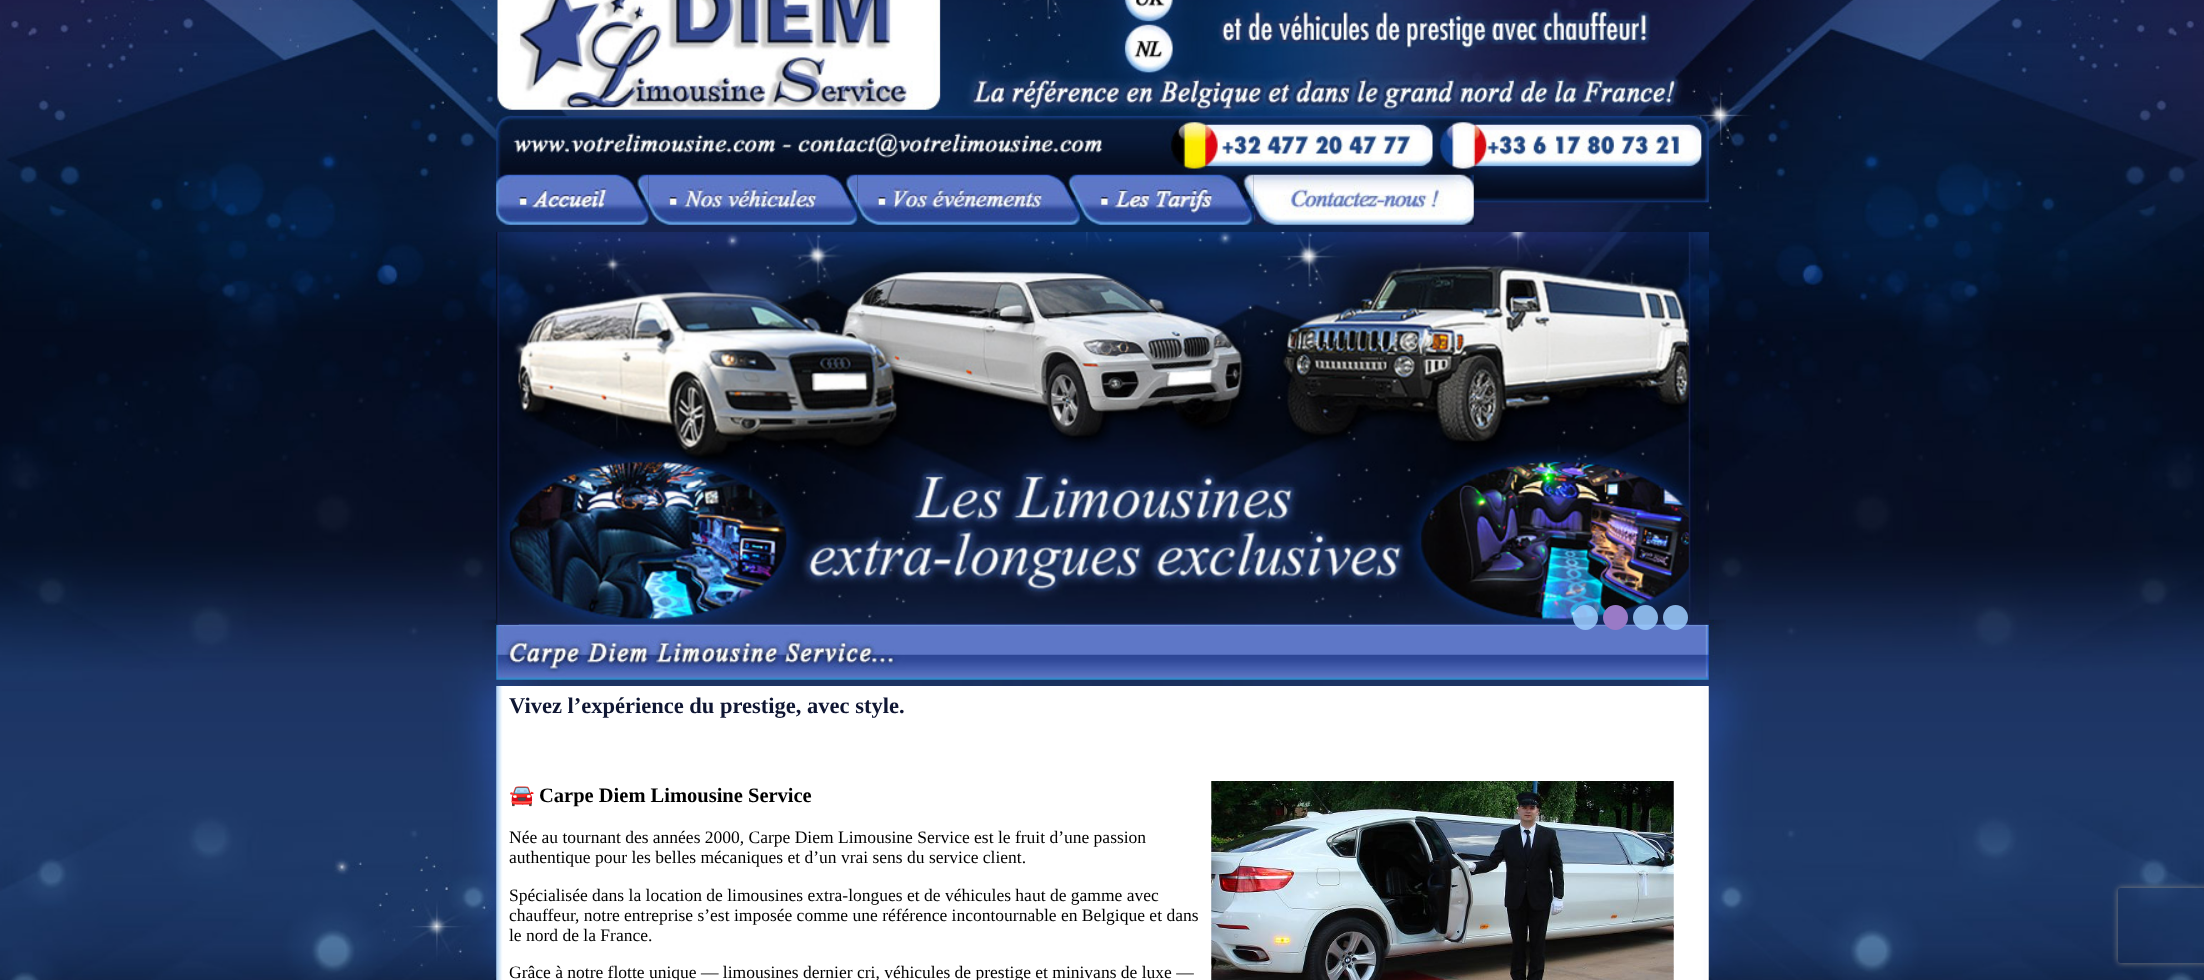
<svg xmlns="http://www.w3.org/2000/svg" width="2204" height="980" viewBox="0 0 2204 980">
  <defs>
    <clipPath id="clip1"><path d="M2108 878H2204V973H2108ZM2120.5 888H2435.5C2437 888 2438 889 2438 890.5V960.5C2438 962 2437 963 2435.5 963H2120.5C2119 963 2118 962 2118 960.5V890.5C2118 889 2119 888 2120.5 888Z" clip-rule="evenodd"/></clipPath>
  </defs>
  <rect width="100%" height="100%" fill="#fff"/>
  <image x="0" y="0" width="2204" height="980" href="img/1.png"/>
  <image x="496" y="174" width="153" height="51" href="img/2.png"/>
  <image x="648" y="174" width="210" height="51" href="img/3.png"/>
  <image x="857" y="174" width="223" height="51" href="img/4.png"/>
  <image x="1080" y="174" width="174" height="51" href="img/5.png"/>
  <image x="1253" y="174" width="221" height="51" href="img/6.png"/>
  <image x="482" y="619" width="1244" height="61" href="img/10.png"/>
  <image x="496" y="624" width="23" height="1" href="img/8.png"/>
  <image x="496" y="232" width="1213" height="393" href="img/7.png"/>
  <image x="1688" y="232" width="21" height="393" href="img/9.png"/>
  <circle cx="1585.5" cy="617.5" r="12.5" fill="#9bcafcde"/>
  <circle cx="1615.5" cy="617.5" r="12.5" fill="#997ac6"/>
  <circle cx="1645.5" cy="617.5" r="12.5" fill="#9bcafcde"/>
  <circle cx="1675.5" cy="617.5" r="12.5" fill="#9bcafcde"/>
  <image x="496" y="686" width="1213" height="294" href="img/11.png"/>
  <image x="1211" y="781" width="463" height="199" href="img/12.png"/>
  <g clip-path="url(#clip1)">
    <rect x="2118" y="888" width="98" height="75" rx="2.5" fill="#808080" filter="blur(3px)"/>
  </g>
  <text x="509" y="713" font-family="Liberation Serif" font-size="22.5" font-weight="bold" fill="#0f1633">Vivez l’expérience du prestige, avec style.</text>
  <text x="509" y="802" font-family="Noto Color Emoji" font-size="20.5" font-weight="bold" fill="#000">🚘</text>
  <text x="539" y="802" font-family="Liberation Serif" font-size="20.5" font-weight="bold" fill="#000">Carpe Diem Limousine Service</text>
  <g font-family="Liberation Serif" font-size="17.5" fill="#000">
    <text x="509" y="843">Née au tournant des années 2000, Carpe Diem Limousine Service est le fruit d’une passion</text>
    <text x="509" y="863">authentique pour les belles mécaniques et d’un vrai sens du service client.</text>
    <text x="509" y="901">Spécialisée dans la location de limousines extra-longues et de véhicules haut de gamme avec</text>
    <text x="509" y="921">chauffeur, notre entreprise s’est imposée comme une référence incontournable en Belgique et dans</text>
    <text x="509" y="941">le nord de la France.</text>
    <text x="509" y="978">Grâce à notre flotte unique — limousines dernier cri, véhicules de prestige et minivans de luxe —</text>
  </g>
</svg>
